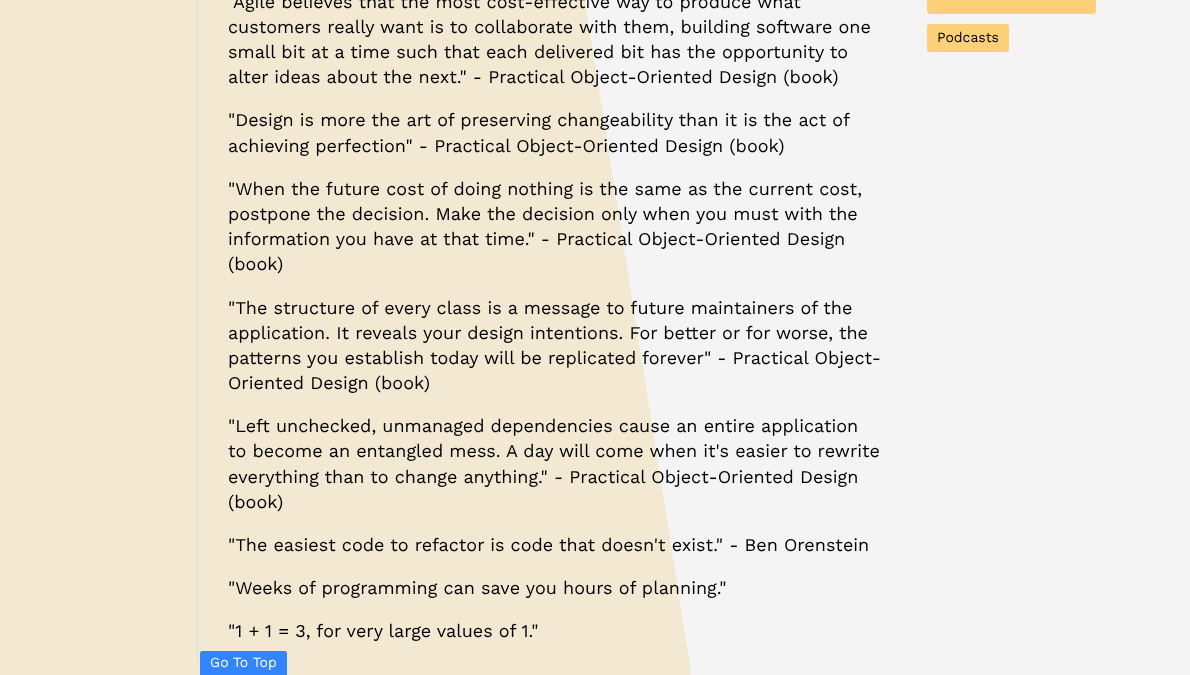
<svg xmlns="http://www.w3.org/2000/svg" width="1190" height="675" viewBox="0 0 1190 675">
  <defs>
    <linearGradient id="g1" gradientUnits="userSpaceOnUse" x1="-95" y1="173" x2="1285" y2="-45"><stop offset="0.5" stop-color="#f3e8d2"/><stop offset="0.5" stop-color="#f4f4f4"/></linearGradient>
  </defs>
  <rect width="100%" height="100%" fill="#fff"/>
  <path d="M0 0h1190v675H0z" fill="url(#g1)"/>
  <path d="M197 0h1v662H197z" fill="#dedede"/>
  <path d="M202 651H285C286 651 287 652 287 653V675H200V653C200 652 201 651 202 651Z" fill="#3385ff"/>
  <rect x="926.5" y="-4.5" width="170" height="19" rx="3.5" fill="#fbd078" stroke="#f4f4f4"/>
  <rect x="926.5" y="23.5" width="83" height="29" rx="3.5" fill="#fbd078" stroke="#f4f4f4"/>
  <g font-family="Work Sans" font-size="18" fill="#000">
    <text x="233" y="8">Agile believes that the most cost-effective way to produce what</text>
    <text x="228" y="33">customers really want is to collaborate with them, building software one</text>
    <text x="228" y="58">small bit at a time such that each delivered bit has the opportunity to</text>
    <text x="228" y="83">alter ideas about the next." - Practical Object-Oriented Design (book)</text>
    <text x="228" y="126">"Design is more the art of preserving changeability than it is the act of</text>
    <text x="228" y="152">achieving perfection" - Practical Object-Oriented Design (book)</text>
    <text x="228" y="195">"When the future cost of doing nothing is the same as the current cost,</text>
    <text x="228" y="220">postpone the decision. Make the decision only when you must with the</text>
    <text x="228" y="245">information you have at that time." - Practical Object-Oriented Design</text>
    <text x="228" y="270">(book)</text>
    <text x="228" y="314">"The structure of every class is a message to future maintainers of the</text>
    <text x="228" y="339">application. It reveals your design intentions. For better or for worse, the</text>
    <text x="228" y="364">patterns you establish today will be replicated forever" - Practical Object-</text>
    <text x="228" y="389">Oriented Design (book)</text>
    <text x="228" y="432">"Left unchecked, unmanaged dependencies cause an entire application</text>
    <text x="228" y="457">to become an entangled mess. A day will come when it's easier to rewrite</text>
    <text x="228" y="483">everything than to change anything." - Practical Object-Oriented Design</text>
    <text x="228" y="508">(book)</text>
    <text x="228" y="551">"The easiest code to refactor is code that doesn't exist." - Ben Orenstein</text>
    <text x="228" y="594">"Weeks of programming can save you hours of planning."</text>
    <text x="228" y="637">"1 + 1 = 3, for very large values of 1."</text>
  </g>
  <text x="210" y="667" font-family="Work Sans" font-size="14" fill="#fff">Go To Top</text>
  <text x="937" y="42" font-family="Work Sans" font-size="14" fill="#000">Podcasts</text>
</svg>
